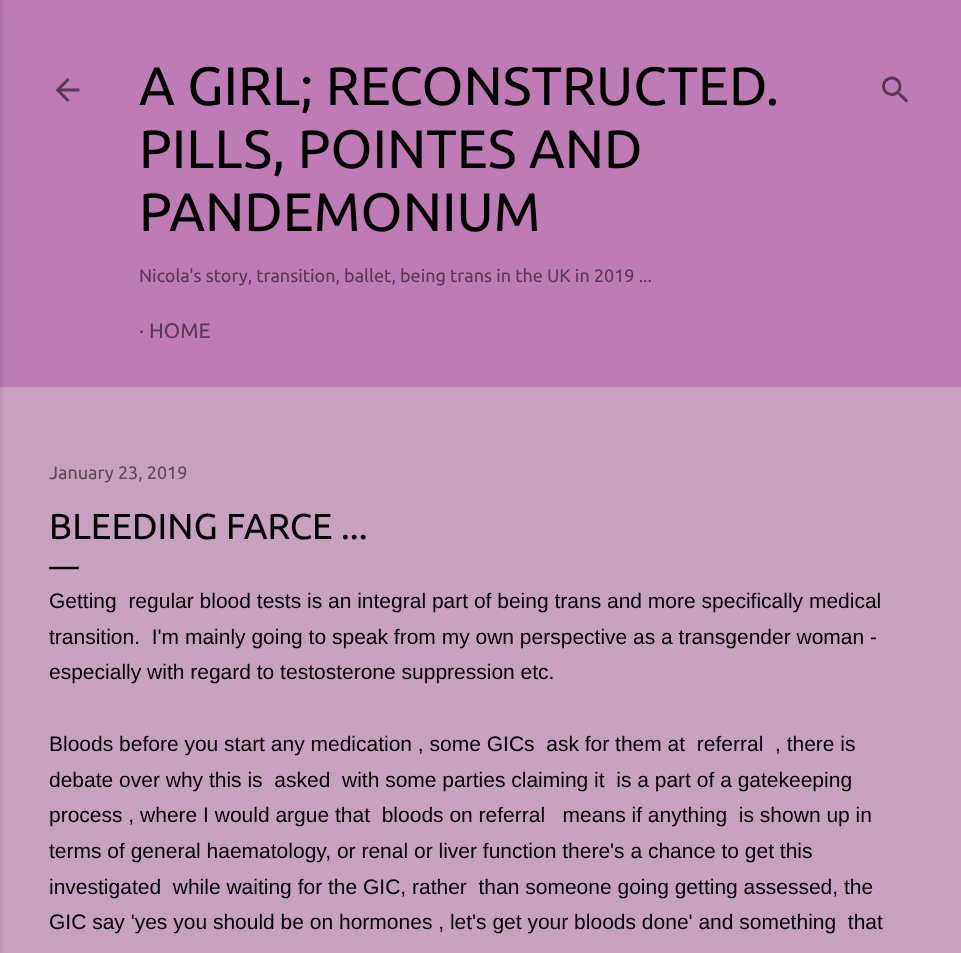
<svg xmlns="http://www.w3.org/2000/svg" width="961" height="953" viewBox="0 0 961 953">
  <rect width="100%" height="100%" fill="#c9a1c0"/>
  <path d="M0 0h961v387H0z" fill="#bf7bb6"/>
  <path d="M-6 0h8v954H-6z" fill="#0000001a" filter="blur(2px)"/>
  <image x="55" y="78" width="25" height="24" href="img/1.png"/>
  <image x="882" y="76" width="27" height="27" href="img/2.png"/>
  <g font-family="Ubuntu" font-size="54" fill="#000">
    <text x="139" y="105">A GIRL; RECONSTRUCTED.</text>
    <text x="139" y="168">PILLS, POINTES AND</text>
    <text x="139" y="231">PANDEMONIUM</text>
  </g>
  <text x="139" y="282" font-family="Ubuntu" font-size="18" fill="#583954">Nicola's story, transition, ballet, being trans in the UK in 2019 ...</text>
  <text x="139" y="338" font-family="Ubuntu" font-size="21" fill="#583954">· HOME</text>
  <text x="49" y="479" font-family="Ubuntu" font-size="18" fill="#5c4a58">January 23, 2019</text>
  <text x="49" y="539" font-family="Ubuntu" font-size="36" fill="#000">BLEEDING FARCE ...</text>
  <text x="49" y="577" font-family="Ubuntu" font-size="30" fill="#000">—</text>
  <g font-family="Liberation Sans" font-size="21" fill="#000">
    <text x="49" y="608" xml:space="preserve">Getting  regular blood tests is an integral part of being trans and more specifically medical</text>
    <text x="49" y="644" xml:space="preserve">transition.  I'm mainly going to speak from my own perspective as a transgender woman -</text>
    <text x="49" y="679">especially with regard to testosterone suppression etc.</text>
    <text x="49" y="751" xml:space="preserve">Bloods before you start any medication , some GICs  ask for them at  referral  , there is</text>
    <text x="49" y="787" xml:space="preserve">debate over why this is  asked  with some parties claiming it  is a part of a gatekeeping</text>
    <text x="49" y="822" xml:space="preserve">process , where I would argue that  bloods on referral   means if anything  is shown up in</text>
    <text x="49" y="858">terms of general haematology, or renal or liver function there's a chance to get this</text>
    <text x="49" y="894" xml:space="preserve">investigated  while waiting for the GIC, rather  than someone going getting assessed, the</text>
    <text x="49" y="929" xml:space="preserve">GIC say 'yes you should be on hormones , let's get your bloods done' and something  that</text>
  </g>
</svg>
